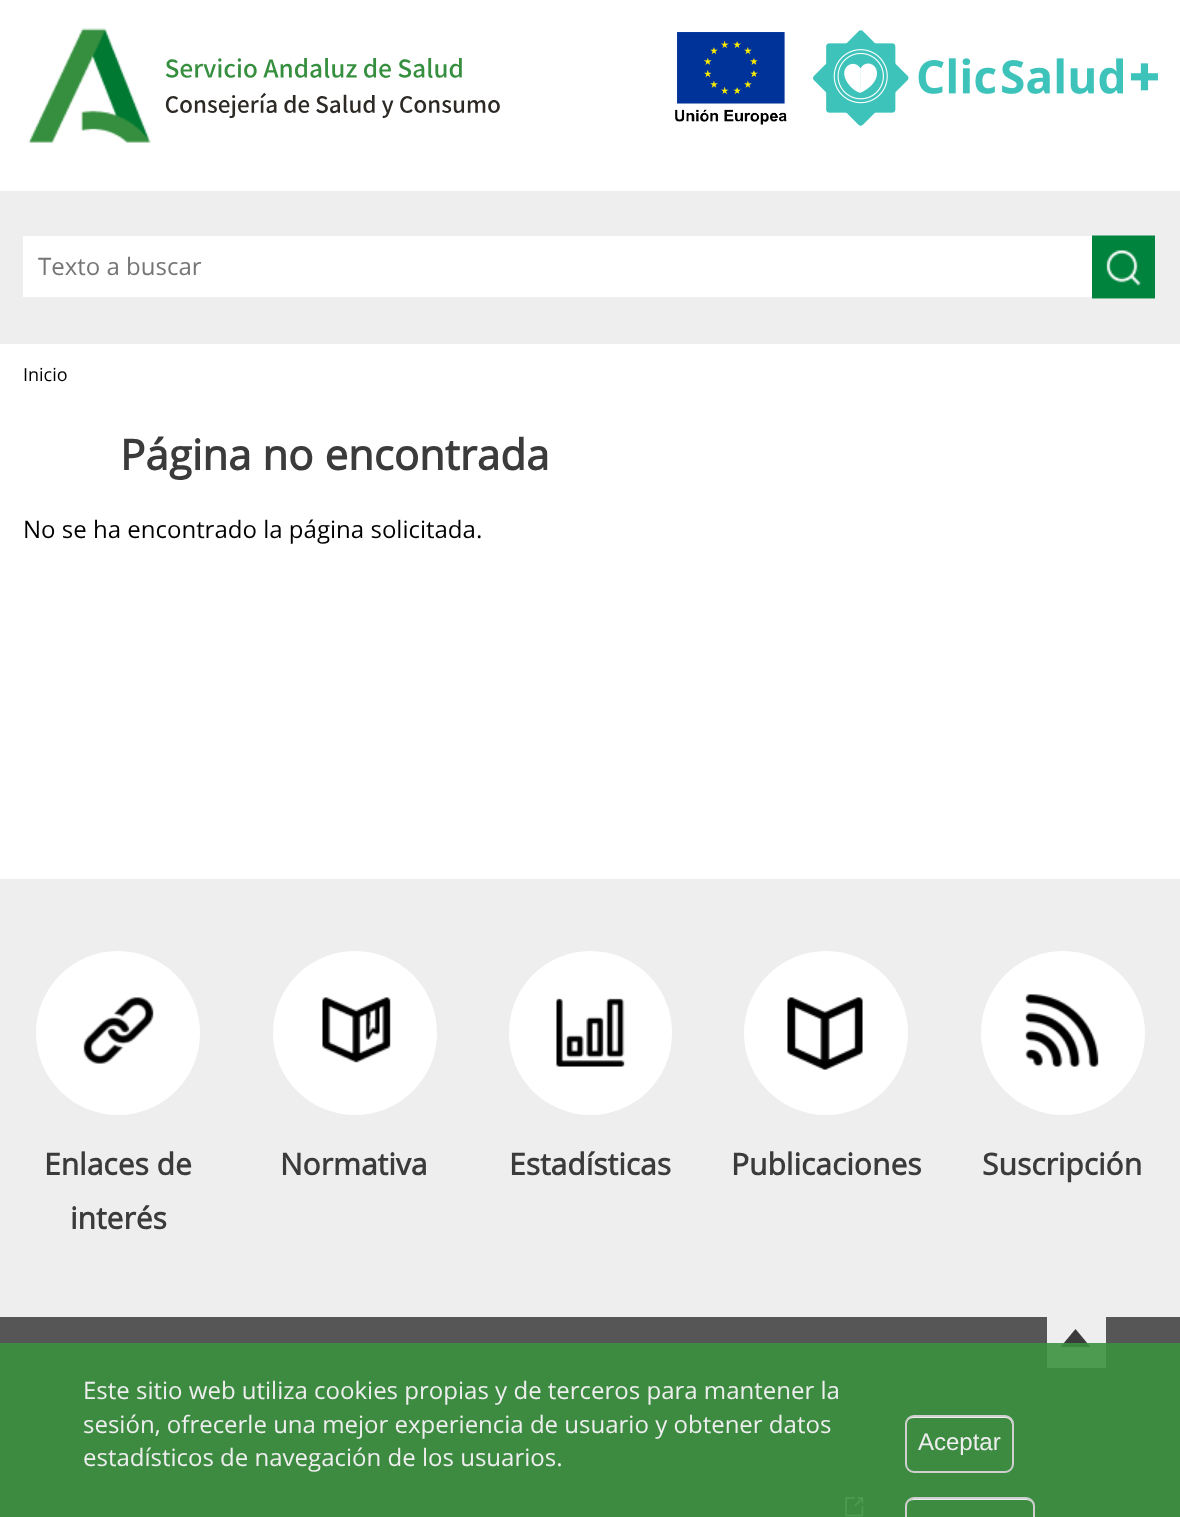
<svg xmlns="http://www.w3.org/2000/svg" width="1180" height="1517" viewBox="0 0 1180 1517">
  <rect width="100%" height="100%" fill="#fff"/>
  <image x="28" y="28" width="123" height="115" href="img/1.png"/>
  <image x="165" y="58" width="335" height="60" href="img/2.png"/>
  <image x="675" y="32" width="112" height="93" href="img/3.png"/>
  <image x="813" y="30" width="345" height="96" href="img/4.png"/>
  <path d="M0 191h1180v153H0z" fill="#eee"/>
  <path d="M23 236h1069v61H23z" fill="#fff"/>
  <path d="M1092 298h63v1H1092z" fill="#fff"/>
  <image x="1092" y="235" width="63" height="64" href="img/5.png"/>
  <path d="M0 879h1180v438H0z" fill="#eee"/>
  <circle cx="118" cy="1033" r="82" fill="#fff"/>
  <image x="83" y="997" width="71" height="67" href="img/6.png"/>
  <circle cx="355" cy="1033" r="82" fill="#fff"/>
  <image x="322" y="997" width="69" height="66" href="img/7.png"/>
  <rect x="509" y="951" width="163" height="164" rx="81.5" fill="#fff"/>
  <image x="556" y="998" width="69" height="69" href="img/8.png"/>
  <circle cx="826" cy="1033" r="82" fill="#fff"/>
  <image x="787" y="997" width="76" height="73" href="img/9.png"/>
  <circle cx="1063" cy="1033" r="82" fill="#fff"/>
  <image x="1025" y="994" width="74" height="73" href="img/10.png"/>
  <path d="M0 1317h1180v200H0z" fill="#575656"/>
  <path d="M1047 1317h59v51H1047z" fill="#eee"/>
  <path d="M1090.5 1347H1060.5L1075.5 1329Z" fill="#3b3b3b"/>
  <image x="845" y="1497" width="19" height="20" href="img/11.png"/>
  <path d="M0 1343h1180v174H0z" fill="#3a913fe6"/>
  <path d="M914 1418H1005C1009 1418 1012 1421 1012 1425V1466V1469C1012 1467 1013 1466 1013 1464V1424C1013 1420 1009 1416 1005 1416H914C910 1416 906 1420 906 1424V1425C906 1421 909 1418 914 1418Z" fill="#eee"/>
  <rect x="906" y="1416" width="107" height="56" rx="8" fill="none" stroke="#cfcfcf" stroke-width="2"/>
  <path d="M914 1500H1026C1030 1500 1034 1503 1034 1508C1034 1494 1015 1499 1007 1499H933C925 1499 906 1494 906 1508C906 1503 909 1500 914 1500Z" fill="#eee"/>
  <rect x="906" y="1498" width="128" height="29" rx="8" fill="none" stroke="#cfcfcf" stroke-width="2"/>
  <text x="38" y="275" font-family="Open Sans" font-size="24" fill="#757575">Texto a buscar</text>
  <text x="23" y="381" font-family="Open Sans" font-size="18" fill="#000">Inicio</text>
  <text x="120" y="470" font-family="Open Sans" font-size="42" font-weight="bold" fill="#3b3b3b">Página no encontrada</text>
  <text x="23" y="538" font-family="Open Sans" font-size="24" fill="#000">No se ha encontrado la página solicitada.</text>
  <g font-family="Open Sans" font-size="30" font-weight="bold" fill="#3b3b3b">
    <text x="44" y="1175">Enlaces de</text>
    <text x="70" y="1229">interés</text>
    <text x="280" y="1175">Normativa</text>
    <text x="509" y="1175">Estadísticas</text>
    <text x="731" y="1175">Publicaciones</text>
    <text x="982" y="1175">Suscripción</text>
  </g>
  <g font-family="Open Sans" font-size="24" fill="#eee">
    <text x="83" y="1399">Este sitio web utiliza cookies propias y de terceros para mantener la</text>
    <text x="83" y="1433">sesión, ofrecerle una mejor experiencia de usuario y obtener datos</text>
    <text x="83" y="1466">estadísticos de navegación de los usuarios.</text>
  </g>
  <text x="918" y="1450" font-family="Liberation Sans" font-size="24" fill="#eee">Aceptar</text>
</svg>
